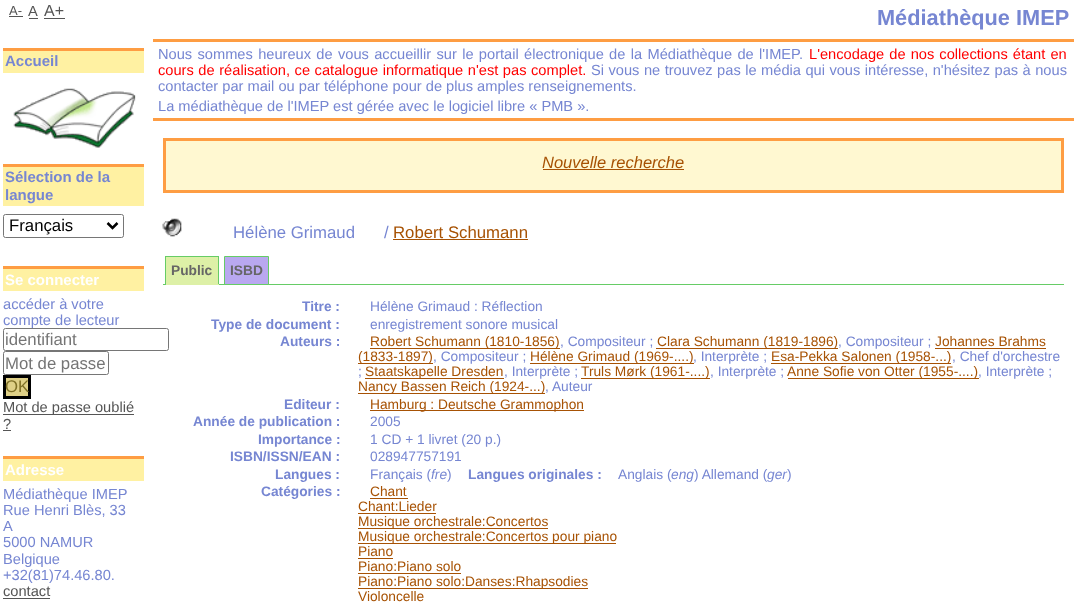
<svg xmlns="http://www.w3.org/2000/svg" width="1084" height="603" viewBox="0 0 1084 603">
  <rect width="100%" height="100%" fill="#fff"/>
  <path d="M9 16h14v1H9z" fill="#555"/>
  <path d="M29 18h9v1H29z" fill="#555"/>
  <path d="M44 18h21v1H44z" fill="#555"/>
  <path d="M3 51h141v22H3z" fill="#fff1a2"/>
  <path d="M3 48h141v3H3z" fill="#fe9d43"/>
  <image x="13" y="88" width="123" height="60" href="img/1.png"/>
  <path d="M3 167h141v39H3z" fill="#fff1a2"/>
  <path d="M3 164h141v3H3z" fill="#fe9d43"/>
  <rect x="3.5" y="214.5" width="120" height="23" rx="2" fill="none" stroke="#767676"/>
  <path d="M107.5 223L112.5 228L117.5 223" fill="none" stroke="#000" stroke-width="2.5"/>
  <path d="M3 269h141v22H3z" fill="#fff1a2"/>
  <path d="M3 266h141v3H3z" fill="#fe9d43"/>
  <rect x="3.5" y="351.5" width="105" height="23" rx="2" fill="none" stroke="#767676"/>
  <path d="M4.5 376.5h25v21H4.5z" fill="#dfd087" stroke="#000" stroke-width="3"/>
  <path d="M3 414h131v1H3z" fill="#555"/>
  <path d="M3 430h8v1H3z" fill="#555"/>
  <path d="M3 459h141v22H3z" fill="#fff1a2"/>
  <path d="M3 456h141v3H3z" fill="#fe9d43"/>
  <path d="M3 598h47v1H3z" fill="#555"/>
  <path d="M153 118h921v3H153z" fill="#fe9d43"/>
  <path d="M153 39h921v3H153z" fill="#fe9d43"/>
  <path d="M164.5 139.5h898v52H164.5z" fill="#fff8d1" stroke="#fe9d43" stroke-width="3"/>
  <path d="M543 169h141v1H543z" fill="#a75204"/>
  <image x="162" y="218" width="20" height="19" href="img/2.png"/>
  <path d="M393 239h135v1H393z" fill="#a75204"/>
  <path d="M163 284h901v1H163z" fill="#6c6"/>
  <path d="M166 257h52v27H166z" fill="#ddf0a7"/>
  <path d="M165 256h54v1H165z" fill="#6c6"/>
  <path d="M218 256h1v29H218z" fill="#6c6"/>
  <path d="M165 284h54v1H165z" fill="#ddf0a7"/>
  <path d="M165 256h1v29H165z" fill="#6c6"/>
  <path d="M224.5 256.5h44v28H224.5z" fill="#b9a8f0" stroke="#6c6"/>
  <path d="M370 348h190v1H370z" fill="#a75204"/>
  <path d="M656 348h182v1H656z" fill="#a75204"/>
  <path d="M935 348h111v1H935z" fill="#a75204"/>
  <path d="M358 363h75v1H358z" fill="#a75204"/>
  <path d="M530 363h164v1H530z" fill="#a75204"/>
  <path d="M771 363h180v1H771z" fill="#a75204"/>
  <path d="M365 378h139v1H365z" fill="#a75204"/>
  <path d="M581 378h129v1H581z" fill="#a75204"/>
  <path d="M788 378h191v1H788z" fill="#a75204"/>
  <path d="M358 393h187v1H358z" fill="#a75204"/>
  <path d="M370 410h214v1H370z" fill="#a75204"/>
  <path d="M370 498h38v1H370z" fill="#a75204"/>
  <path d="M358 513h78v1H358z" fill="#a75204"/>
  <path d="M358 528h190v1H358z" fill="#a75204"/>
  <path d="M358 543h258v1H358z" fill="#a75204"/>
  <path d="M358 558h35v1H358z" fill="#a75204"/>
  <path d="M358 573h103v1H358z" fill="#a75204"/>
  <path d="M358 588h230v1H358z" fill="#a75204"/>
  <text x="9" y="15" font-family="Liberation Sans" font-size="13" fill="#555">A-</text>
  <text x="28" y="16" font-family="Liberation Sans" font-size="14.65" fill="#555">A</text>
  <text x="44" y="16" font-family="Liberation Sans" font-size="16" fill="#555">A+</text>
  <g font-family="Liberation Sans" font-size="15" font-weight="bold" fill="#7686d2">
    <text x="5" y="66">Accueil</text>
    <text x="5" y="182">Sélection de la</text>
    <text x="5" y="200">langue</text>
  </g>
  <text x="9" y="231" font-family="Liberation Sans" font-size="16.75" fill="#000">Français</text>
  <text x="5" y="285" font-family="Liberation Sans" font-size="15" font-weight="bold" fill="#fff">Se connecter</text>
  <g font-family="Liberation Sans" font-size="14.65" fill="#7686d2">
    <text x="3" y="309">accéder à votre</text>
    <text x="3" y="325">compte de lecteur</text>
  </g>
  <rect x="3.5" y="328.5" width="165" height="22" rx="2" fill="#fff" stroke="#767676"/>
  <g font-family="Liberation Sans" font-size="16.75" fill="#757575">
    <text x="5" y="345">identifiant</text>
    <text x="5" y="369">Mot de passe</text>
  </g>
  <text x="5" y="392" font-family="Liberation Sans" font-size="16.75" fill="#7f7027">OK</text>
  <g font-family="Liberation Sans" font-size="14.65" fill="#555">
    <text x="3" y="412">Mot de passe oublié</text>
    <text x="3" y="429">?</text>
  </g>
  <text x="5" y="475" font-family="Liberation Sans" font-size="15" font-weight="bold" fill="#fff">Adresse</text>
  <g font-family="Liberation Sans" font-size="14.65" fill="#7686d2">
    <text x="3" y="499">Médiathèque IMEP</text>
    <text x="3" y="515">Rue Henri Blès, 33</text>
    <text x="3" y="531">A</text>
    <text x="3" y="547">5000 NAMUR</text>
    <text x="3" y="564">Belgique</text>
    <text x="3" y="580">+32(81)74.46.80.</text>
  </g>
  <text x="3" y="596" font-family="Liberation Sans" font-size="14.65" fill="#555">contact</text>
  <text x="877" y="25" font-family="Liberation Sans" font-size="21.75" font-weight="bold" fill="#7686d2">Médiathèque IMEP</text>
  <text x="158" y="59" word-spacing="1.25" font-family="Liberation Sans" font-size="14.65" fill="#7686d2">Nous sommes heureux de vous accueillir sur le portail électronique de la Médiathèque de l'IMEP.</text>
  <g font-family="Liberation Sans" font-size="14.65" fill="#f00">
    <text x="809" y="59" word-spacing="1">L'encodage de nos collections étant en</text>
    <text x="158" y="75" word-spacing="0.5">cours de réalisation, ce catalogue informatique n'est pas complet.</text>
  </g>
  <g font-family="Liberation Sans" font-size="14.65" fill="#7686d2">
    <text x="591" y="75" word-spacing="0.4">Si vous ne trouvez pas le média qui vous intéresse, n'hésitez pas à nous</text>
    <text x="158" y="91">contacter par mail ou par téléphone pour de plus amples renseignements.</text>
    <text x="158" y="111">La médiathèque de l'IMEP est gérée avec le logiciel libre « PMB ».</text>
  </g>
  <text x="542" y="168" font-family="Liberation Sans" font-size="16.5" font-style="italic" fill="#a75204">Nouvelle recherche</text>
  <g font-family="Liberation Sans" font-size="16.75" fill="#7686d2">
    <text x="233" y="238">Hélène Grimaud</text>
    <text x="384" y="238">/</text>
  </g>
  <text x="393" y="238" font-family="Liberation Sans" font-size="16.75" fill="#a75204">Robert Schumann</text>
  <g font-family="Liberation Sans" font-size="13.75" font-weight="bold" fill="#666">
    <text x="171" y="275">Public</text>
    <text x="230" y="275">ISBD</text>
  </g>
  <text x="302" y="311" font-family="Liberation Sans" font-size="13.75" font-weight="bold" fill="#7686d2">Titre :</text>
  <text x="370" y="311" font-family="Liberation Sans" font-size="13.75" fill="#7686d2">Hélène Grimaud : Réflection</text>
  <text x="211" y="329" font-family="Liberation Sans" font-size="13.75" font-weight="bold" fill="#7686d2">Type de document :</text>
  <text x="370" y="329" font-family="Liberation Sans" font-size="13.75" fill="#7686d2">enregistrement sonore musical</text>
  <text x="280" y="346" font-family="Liberation Sans" font-size="13.75" font-weight="bold" fill="#7686d2">Auteurs :</text>
  <text x="370" y="346" font-family="Liberation Sans" font-size="13.75" fill="#a75204">Robert Schumann (1810-1856)</text>
  <text x="560" y="346" font-family="Liberation Sans" font-size="13.75" fill="#7686d2">, Compositeur ;</text>
  <text x="657" y="346" font-family="Liberation Sans" font-size="13.75" fill="#a75204">Clara Schumann (1819-1896)</text>
  <text x="838" y="346" font-family="Liberation Sans" font-size="13.75" fill="#7686d2">, Compositeur ;</text>
  <g font-family="Liberation Sans" font-size="13.75" fill="#a75204">
    <text x="935" y="346">Johannes Brahms</text>
    <text x="358" y="361">(1833-1897)</text>
  </g>
  <text x="433" y="361" font-family="Liberation Sans" font-size="13.75" fill="#7686d2">, Compositeur ;</text>
  <text x="530" y="361" font-family="Liberation Sans" font-size="13.75" fill="#a75204">Hélène Grimaud (1969-....)</text>
  <text x="693" y="361" font-family="Liberation Sans" font-size="13.75" fill="#7686d2">, Interprète ;</text>
  <text x="771" y="361" font-family="Liberation Sans" font-size="13.75" fill="#a75204">Esa-Pekka Salonen (1958-...)</text>
  <g font-family="Liberation Sans" font-size="13.75" fill="#7686d2">
    <text x="952" y="361">, Chef d'orchestre</text>
    <text x="358" y="376">;</text>
  </g>
  <text x="365" y="376" font-family="Liberation Sans" font-size="13.75" fill="#a75204">Staatskapelle Dresden</text>
  <text x="504" y="376" font-family="Liberation Sans" font-size="13.75" fill="#7686d2">, Interprète ;</text>
  <text x="581" y="376" font-family="Liberation Sans" font-size="13.75" fill="#a75204">Truls Mørk (1961-....)</text>
  <text x="710" y="376" font-family="Liberation Sans" font-size="13.75" fill="#7686d2">, Interprète ;</text>
  <text x="787" y="376" font-family="Liberation Sans" font-size="13.75" fill="#a75204">Anne Sofie von Otter (1955-....)</text>
  <text x="978" y="376" font-family="Liberation Sans" font-size="13.75" fill="#7686d2">, Interprète ;</text>
  <text x="358" y="391" font-family="Liberation Sans" font-size="13.75" fill="#a75204">Nancy Bassen Reich (1924-...)</text>
  <text x="545" y="391" font-family="Liberation Sans" font-size="13.75" fill="#7686d2">, Auteur</text>
  <text x="284" y="409" font-family="Liberation Sans" font-size="13.75" font-weight="bold" fill="#7686d2">Editeur :</text>
  <text x="370" y="409" font-family="Liberation Sans" font-size="13.75" fill="#a75204">Hamburg : Deutsche Grammophon</text>
  <text x="193" y="426" font-family="Liberation Sans" font-size="13.75" font-weight="bold" fill="#7686d2">Année de publication :</text>
  <text x="370" y="426" font-family="Liberation Sans" font-size="13.75" fill="#7686d2">2005</text>
  <text x="258" y="444" font-family="Liberation Sans" font-size="13.75" font-weight="bold" fill="#7686d2">Importance :</text>
  <text x="370" y="444" font-family="Liberation Sans" font-size="13.75" fill="#7686d2">1 CD + 1 livret (20 p.)</text>
  <text x="230" y="461" font-family="Liberation Sans" font-size="13.75" font-weight="bold" fill="#7686d2">ISBN/ISSN/EAN :</text>
  <text x="370" y="461" font-family="Liberation Sans" font-size="13.75" fill="#7686d2">028947757191</text>
  <text x="275" y="479" font-family="Liberation Sans" font-size="13.75" font-weight="bold" fill="#7686d2">Langues :</text>
  <text x="370" y="479" font-family="Liberation Sans" font-size="13.75" fill="#7686d2">Français (</text>
  <text x="431" y="479" font-family="Liberation Sans" font-size="13.75" font-style="italic" fill="#7686d2">fre</text>
  <text x="447" y="479" font-family="Liberation Sans" font-size="13.75" fill="#7686d2">)</text>
  <text x="468" y="479" font-family="Liberation Sans" font-size="13.75" font-weight="bold" fill="#7686d2">Langues originales :</text>
  <text x="618" y="479" font-family="Liberation Sans" font-size="13.75" fill="#7686d2">Anglais (</text>
  <text x="671" y="479" font-family="Liberation Sans" font-size="13.75" font-style="italic" fill="#7686d2">eng</text>
  <text x="694" y="479" font-family="Liberation Sans" font-size="13.75" fill="#7686d2">) Allemand (</text>
  <text x="767" y="479" font-family="Liberation Sans" font-size="13.75" font-style="italic" fill="#7686d2">ger</text>
  <text x="787" y="479" font-family="Liberation Sans" font-size="13.75" fill="#7686d2">)</text>
  <text x="261" y="496" font-family="Liberation Sans" font-size="13.75" font-weight="bold" fill="#7686d2">Catégories :</text>
  <g font-family="Liberation Sans" font-size="13.75" fill="#a75204">
    <text x="370" y="496">Chant</text>
    <text x="358" y="511">Chant:Lieder</text>
    <text x="358" y="526">Musique orchestrale:Concertos</text>
    <text x="358" y="541">Musique orchestrale:Concertos pour piano</text>
    <text x="358" y="556">Piano</text>
    <text x="358" y="571">Piano:Piano solo</text>
    <text x="358" y="586">Piano:Piano solo:Danses:Rhapsodies</text>
    <text x="358" y="601">Violoncelle</text>
  </g>
</svg>
